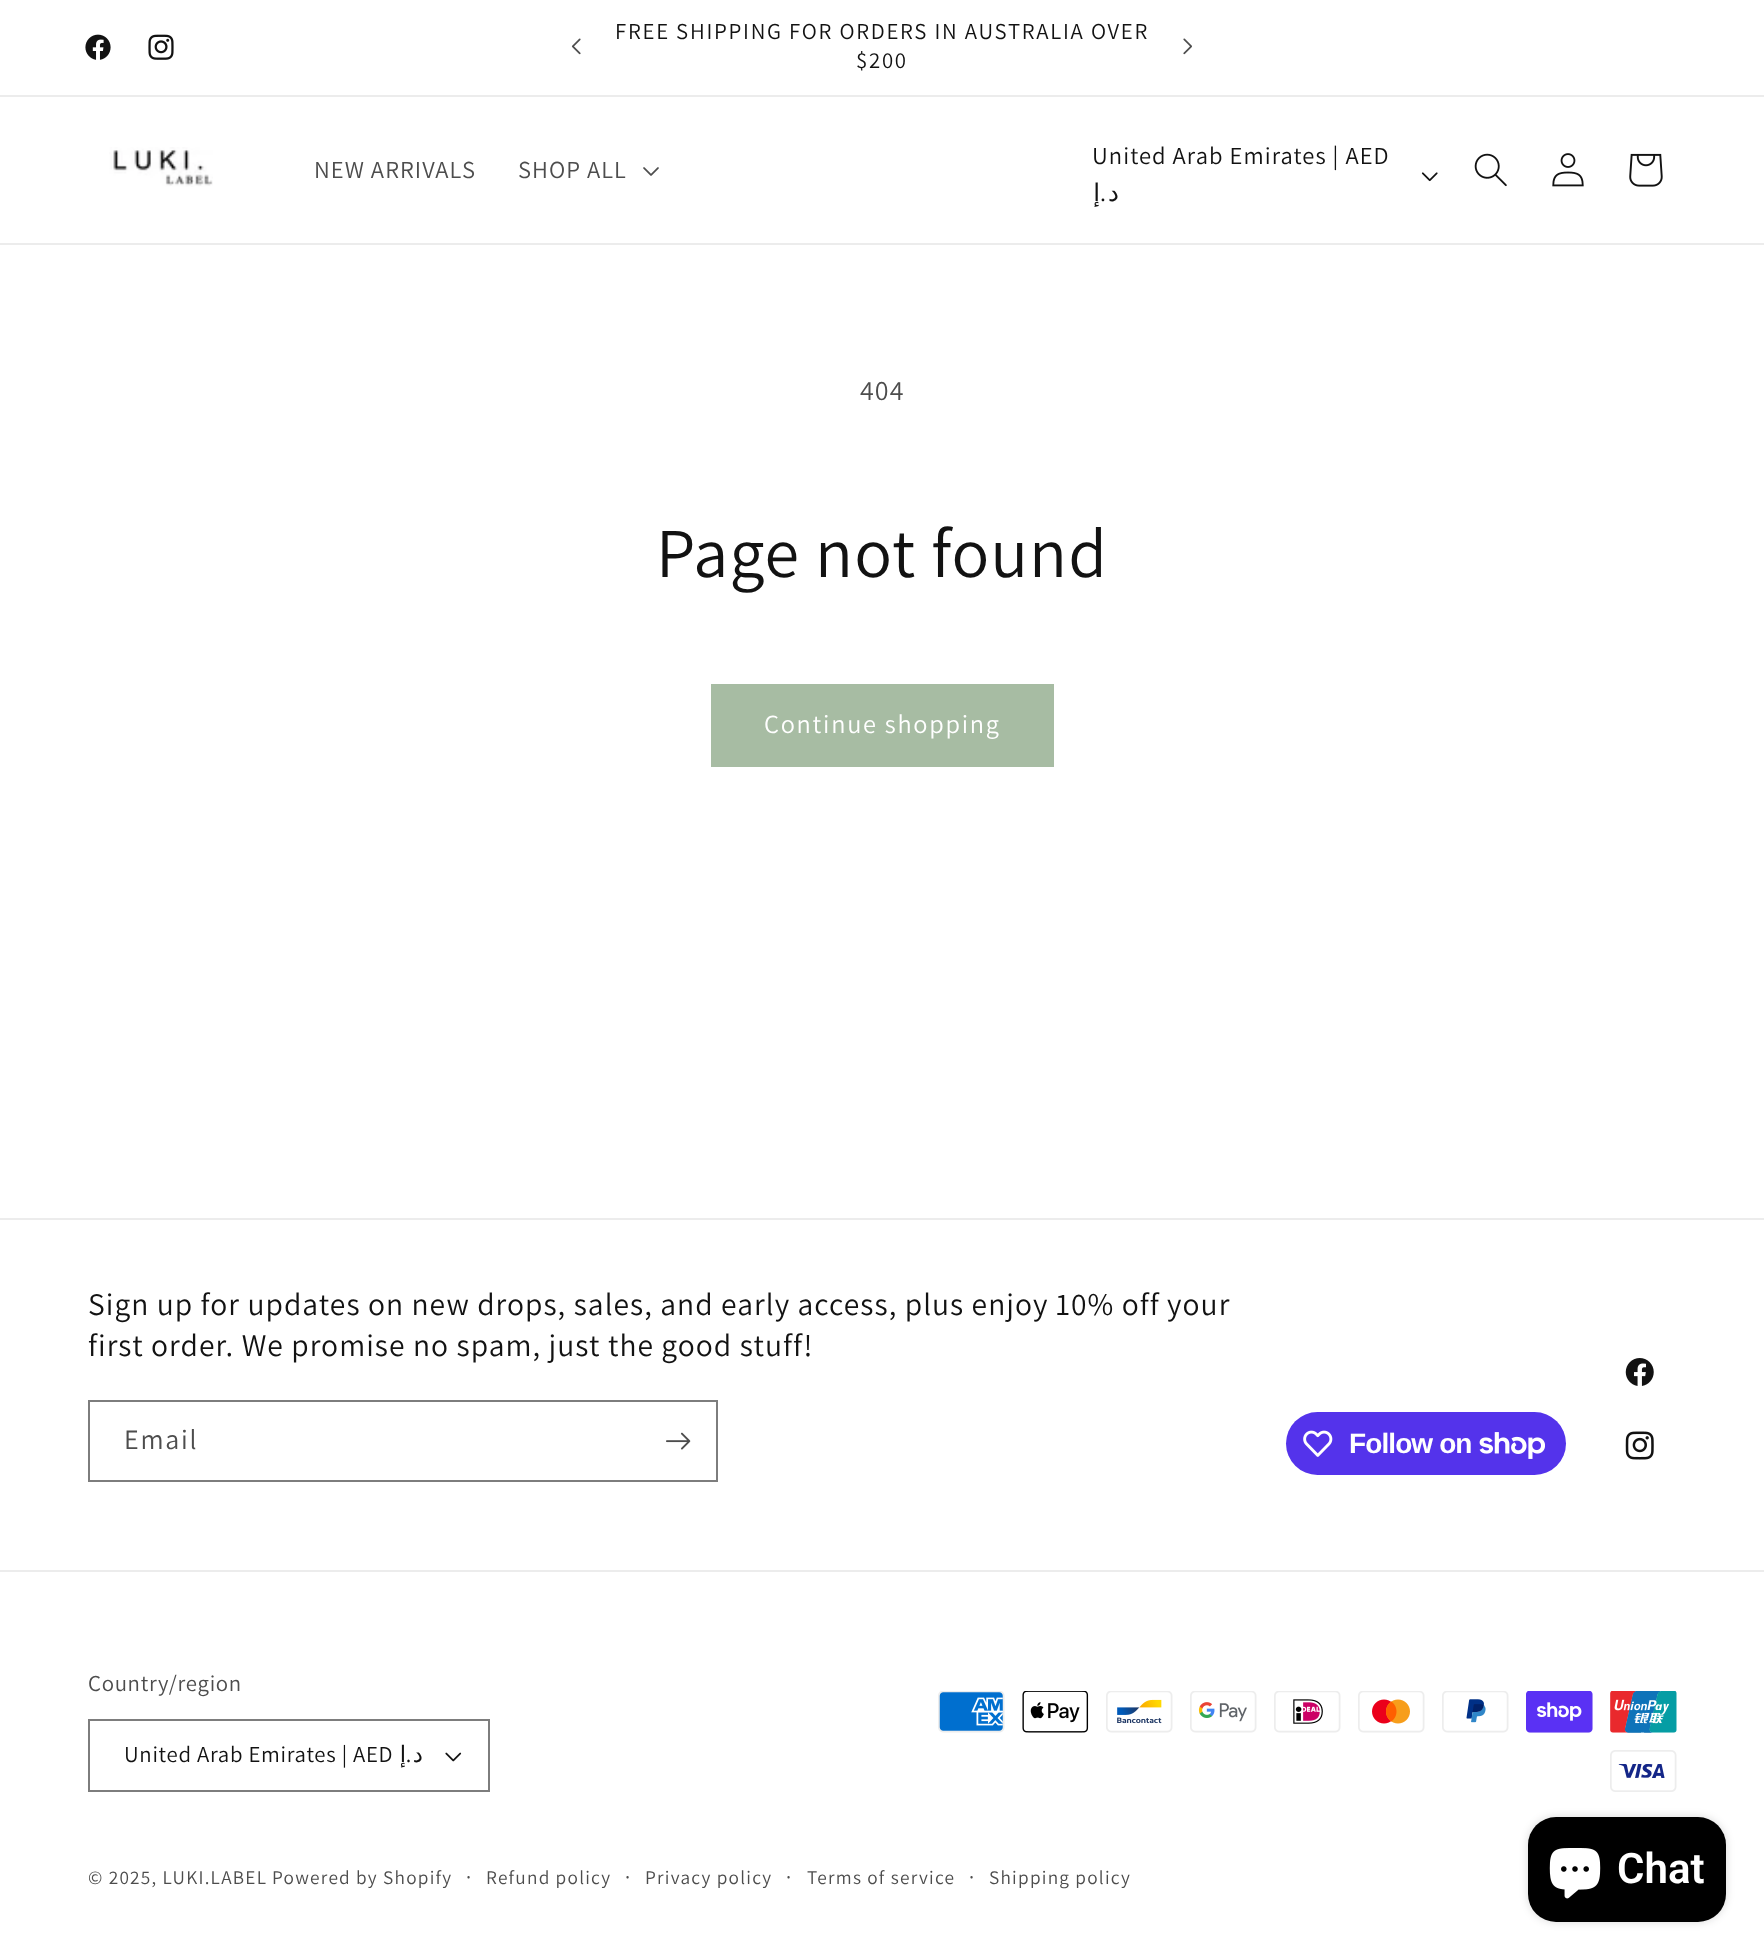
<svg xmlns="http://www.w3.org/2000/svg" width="1764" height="1958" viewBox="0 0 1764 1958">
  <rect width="100%" height="100%" fill="#fff"/>
  <path d="M0 95h1764v2H0z" fill="#ececec"/>
  <image x="85" y="34" width="26" height="26" href="img/1.png"/>
  <image x="148" y="34" width="26" height="26" href="img/2.png"/>
  <image x="571" y="38" width="10" height="17" href="img/3.png"/>
  <image x="1183" y="38" width="9" height="17" href="img/4.png"/>
  <path d="M0 243h1764v2H0z" fill="#ececec"/>
  <image x="109" y="147" width="104" height="40" href="img/5.png"/>
  <image x="643" y="167" width="16" height="9" href="img/6.png"/>
  <image x="1421" y="172" width="17" height="10" href="img/7.png"/>
  <image x="1474" y="153" width="33" height="34" href="img/8.png"/>
  <image x="1552" y="153" width="32" height="34" href="img/9.png"/>
  <image x="1629" y="153" width="34" height="34" href="img/10.png"/>
  <path d="M711 684h343v83H711z" fill="#a7bca3"/>
  <path d="M0 1218h1764v2H0z" fill="#ececec"/>
  <path d="M89 1401h628v80H89z" fill="none" stroke="#7d7d7d" stroke-width="2"/>
  <image x="666" y="1432" width="25" height="18" href="img/11.png"/>
  <rect x="1286" y="1412" width="280" height="63" rx="31.5" fill="#5433eb"/>
  <image x="1303" y="1430" width="30" height="27" href="img/12.png"/>
  <image x="1479" y="1432" width="66" height="27" href="img/13.png"/>
  <image x="1625" y="1358" width="29" height="28" href="img/14.png"/>
  <image x="1625" y="1431" width="29" height="29" href="img/15.png"/>
  <path d="M0 1570h1764v2H0z" fill="#ececec"/>
  <image x="445" y="1752" width="17" height="10" href="img/16.png"/>
  <path d="M89 1720h400v71H89z" fill="none" stroke="#7d7d7d" stroke-width="2"/>
  <image x="938" y="1691" width="67" height="42" href="img/17.png"/>
  <image x="1022" y="1691" width="67" height="42" href="img/18.png"/>
  <image x="1106" y="1691" width="67" height="42" href="img/19.png"/>
  <image x="1190" y="1691" width="67" height="42" href="img/20.png"/>
  <image x="1274" y="1691" width="67" height="42" href="img/21.png"/>
  <image x="1358" y="1691" width="67" height="42" href="img/22.png"/>
  <image x="1442" y="1691" width="67" height="42" href="img/23.png"/>
  <image x="1526" y="1691" width="67" height="42" href="img/24.png"/>
  <image x="1610" y="1691" width="67" height="42" href="img/25.png"/>
  <image x="1610" y="1750" width="67" height="42" href="img/26.png"/>
  <rect x="1528" y="1817" width="198" height="105" rx="28" fill="#00000026" filter="blur(4.5px)"/>
  <rect x="1528" y="1817" width="198" height="105" rx="28" fill="#000"/>
  <image x="1549" y="1848" width="52" height="51" href="img/27.png"/>
  <g font-family="Assistant" font-size="22.75" letter-spacing="1.75" fill="#121212">
    <text x="615" y="39">FREE SHIPPING FOR ORDERS IN AUSTRALIA OVER</text>
    <text x="856" y="68">$200</text>
  </g>
  <g font-family="Assistant" font-size="24.5" letter-spacing="1.05" fill="#4d4d4d">
    <text x="314" y="178">NEW ARRIVALS</text>
    <text x="518" y="178">SHOP ALL</text>
  </g>
  <text x="1092" y="164" font-family="Assistant" font-size="24.5" letter-spacing="1.05" fill="#121212">United Arab Emirates | AED</text>
  <text x="1100" y="201" font-family="DejaVu Sans" font-size="24.5" letter-spacing="1.05" direction="rtl" fill="#121212">إ</text>
  <text x="1107" y="201" font-family="Assistant" font-size="24.5" letter-spacing="1.05" direction="rtl" fill="#121212">.</text>
  <text x="1119" y="201" font-family="DejaVu Sans" font-size="24.5" letter-spacing="1.05" direction="rtl" fill="#121212">د</text>
  <text x="860" y="400" font-family="Assistant" font-size="28" letter-spacing="1.05" fill="#4d4d4d">404</text>
  <text x="656" y="577" font-family="Assistant" font-size="70" letter-spacing="1.05" fill="#121212">Page not found</text>
  <text x="764" y="733" font-family="Assistant" font-size="26.25" letter-spacing="1.75" fill="#fff">Continue shopping</text>
  <g font-family="Assistant" font-size="31.5" letter-spacing="1.05" fill="#121212">
    <text x="88" y="1315">Sign up for updates on new drops, sales, and early access, plus enjoy 10% off your</text>
    <text x="88" y="1356">first order. We promise no spam, just the good stuff!</text>
  </g>
  <text x="124" y="1449" font-family="Assistant" font-size="28" letter-spacing="1.75" fill="#4d4d4d">Email</text>
  <text x="1349" y="1453" font-family="Liberation Sans" font-size="28" font-weight="bold" letter-spacing="-0.9" fill="#fff">Follow on</text>
  <text x="88" y="1691" font-family="Assistant" font-size="22.75" letter-spacing="0.7" fill="#4d4d4d">Country/region</text>
  <text x="124" y="1762" font-family="Assistant" font-size="22.75" letter-spacing="0.7" fill="#121212">United Arab Emirates | AED</text>
  <text x="406" y="1762" font-family="DejaVu Sans" font-size="22.75" letter-spacing="0.7" direction="rtl" fill="#121212">إ</text>
  <text x="412" y="1762" font-family="Assistant" font-size="22.75" letter-spacing="0.7" direction="rtl" fill="#121212">.</text>
  <text x="423" y="1762" font-family="DejaVu Sans" font-size="22.75" letter-spacing="0.7" direction="rtl" fill="#121212">د</text>
  <g font-family="Assistant" font-size="19.25" letter-spacing="1.25" fill="#4d4d4d">
    <text x="88" y="1884">© 2025, LUKI.LABEL</text>
    <text x="272" y="1884">Powered by Shopify</text>
  </g>
  <text x="466" y="1884" font-family="Assistant" font-size="21" letter-spacing="1.25" fill="#4d4d4d">·</text>
  <text x="486" y="1884" font-family="Assistant" font-size="19.25" letter-spacing="1.25" fill="#4d4d4d">Refund policy</text>
  <text x="625" y="1884" font-family="Assistant" font-size="21" letter-spacing="1.25" fill="#4d4d4d">·</text>
  <text x="645" y="1884" font-family="Assistant" font-size="19.25" letter-spacing="1.25" fill="#4d4d4d">Privacy policy</text>
  <text x="786" y="1884" font-family="Assistant" font-size="21" letter-spacing="1.25" fill="#4d4d4d">·</text>
  <text x="807" y="1884" font-family="Assistant" font-size="19.25" letter-spacing="1.25" fill="#4d4d4d">Terms of service</text>
  <text x="969" y="1884" font-family="Assistant" font-size="21" letter-spacing="1.25" fill="#4d4d4d">·</text>
  <text x="989" y="1884" font-family="Assistant" font-size="19.25" letter-spacing="1.25" fill="#4d4d4d">Shipping policy</text>
  <text x="1617" y="1883" font-family="Roboto" font-size="42" font-weight="600" fill="#fff">Chat</text>
</svg>
